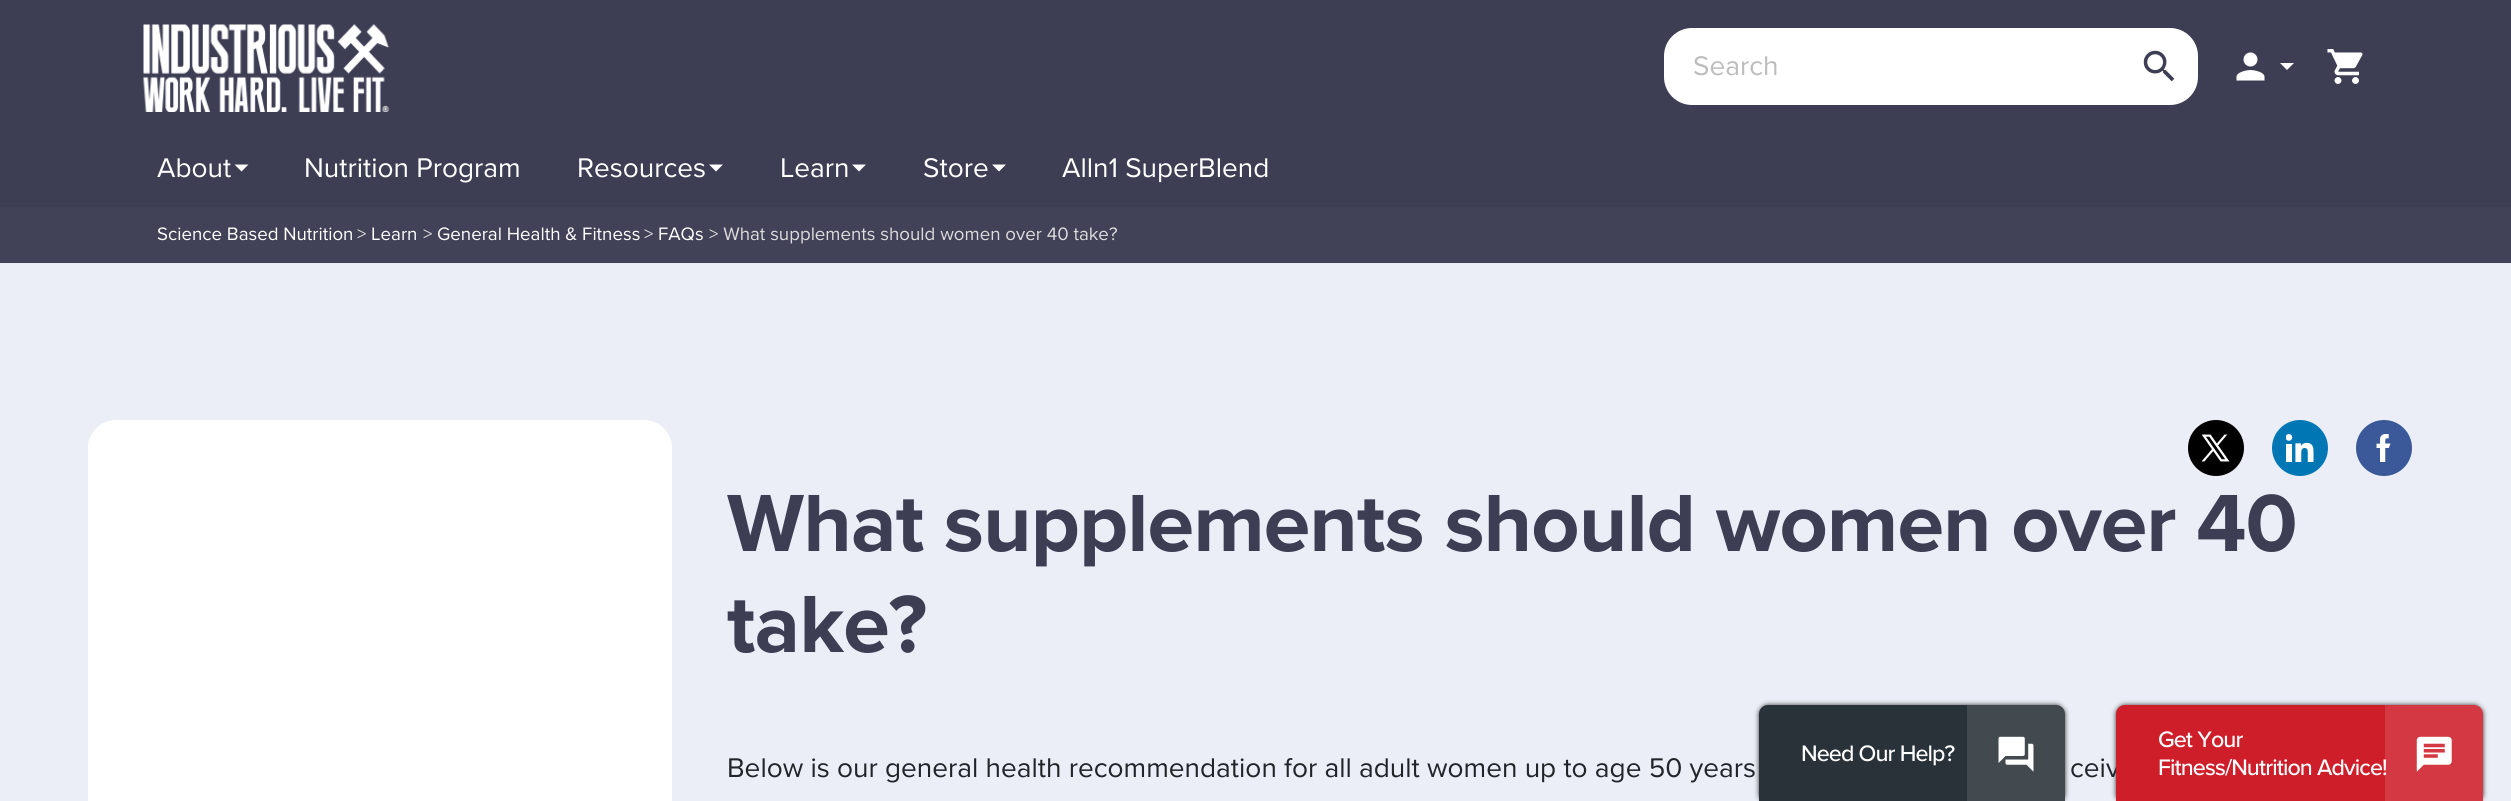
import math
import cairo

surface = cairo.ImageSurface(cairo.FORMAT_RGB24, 2511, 801)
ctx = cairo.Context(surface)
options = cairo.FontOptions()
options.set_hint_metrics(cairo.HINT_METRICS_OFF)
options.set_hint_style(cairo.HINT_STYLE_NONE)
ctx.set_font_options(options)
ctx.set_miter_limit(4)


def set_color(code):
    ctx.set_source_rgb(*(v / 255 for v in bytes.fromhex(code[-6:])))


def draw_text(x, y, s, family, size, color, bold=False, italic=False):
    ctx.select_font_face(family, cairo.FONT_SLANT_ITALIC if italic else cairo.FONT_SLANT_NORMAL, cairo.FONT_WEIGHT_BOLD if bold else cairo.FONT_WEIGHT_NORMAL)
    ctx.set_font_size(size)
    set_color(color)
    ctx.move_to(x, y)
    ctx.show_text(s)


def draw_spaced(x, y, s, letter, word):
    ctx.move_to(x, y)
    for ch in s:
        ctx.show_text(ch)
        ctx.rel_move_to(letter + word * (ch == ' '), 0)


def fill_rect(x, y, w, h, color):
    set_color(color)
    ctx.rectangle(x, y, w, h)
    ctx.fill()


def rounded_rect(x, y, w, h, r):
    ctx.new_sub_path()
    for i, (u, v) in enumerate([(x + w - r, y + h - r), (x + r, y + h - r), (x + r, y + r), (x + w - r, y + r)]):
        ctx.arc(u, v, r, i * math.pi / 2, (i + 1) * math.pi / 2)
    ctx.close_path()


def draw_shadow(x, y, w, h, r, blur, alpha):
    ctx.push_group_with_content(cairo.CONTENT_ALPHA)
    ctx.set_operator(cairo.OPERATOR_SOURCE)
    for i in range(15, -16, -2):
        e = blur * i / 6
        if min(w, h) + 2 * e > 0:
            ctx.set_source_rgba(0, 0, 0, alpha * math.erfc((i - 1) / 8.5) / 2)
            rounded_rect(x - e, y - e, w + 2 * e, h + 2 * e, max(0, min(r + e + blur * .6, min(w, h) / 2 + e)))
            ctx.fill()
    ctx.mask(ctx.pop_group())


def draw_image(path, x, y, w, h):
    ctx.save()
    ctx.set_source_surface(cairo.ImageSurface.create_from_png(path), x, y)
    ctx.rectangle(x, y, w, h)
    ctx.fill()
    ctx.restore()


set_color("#3d3d54")
ctx.paint()
draw_image("assets/img1.png", 143, 24, 246, 88)
set_color("#ffffff")
rounded_rect(1664, 28, 534, 77, 28)
ctx.fill()
draw_text(1693, 75, "Search", "Proxima Nova", 28, "#bdbdbd")
draw_image("assets/img2.png", 2143, 50, 32, 32)
draw_image("assets/img3.png", 2236, 52, 29, 29)
set_color("#ffffff")
ctx.new_path()
ctx.move_to(2280, 63)
ctx.line_to(2294, 63)
ctx.line_to(2287, 70)
ctx.close_path()
ctx.fill()
draw_image("assets/img4.png", 2327, 49, 36, 35)
draw_text(157, 177, "About", "Proxima Nova", 28, "#ffffff")
ctx.new_path()
ctx.move_to(234.5, 164.5)
ctx.line_to(248.5, 164.5)
ctx.line_to(241.5, 171.5)
ctx.close_path()
ctx.fill()
draw_text(304, 177, "Nutrition Program", "Proxima Nova", 28, "#ffffff")
draw_text(577, 177, "Resources", "Proxima Nova", 28, "#ffffff")
ctx.new_path()
ctx.move_to(709, 164.5)
ctx.line_to(723, 164.5)
ctx.line_to(716, 171.5)
ctx.close_path()
ctx.fill()
draw_text(780, 177, "Learn", "Proxima Nova", 28, "#ffffff")
ctx.new_path()
ctx.move_to(852, 164.5)
ctx.line_to(866, 164.5)
ctx.line_to(859, 171.5)
ctx.close_path()
ctx.fill()
draw_text(923, 177, "Store", "Proxima Nova", 28, "#ffffff")
ctx.new_path()
ctx.move_to(992, 164.5)
ctx.line_to(1006, 164.5)
ctx.line_to(999, 171.5)
ctx.close_path()
ctx.fill()
draw_text(1062, 177, "Alln1 SuperBlend", "Proxima Nova", 28, "#ffffff")
fill_rect(0, 207, 2511, 56, "#414157")
draw_text(157, 240, "Science Based Nutrition", "Proxima Nova", 18.7, "#ffffff")
draw_text(357, 240, ">", "Proxima Nova", 18.7, "#dcdcdc")
draw_text(371, 240, "Learn", "Proxima Nova", 18.7, "#ffffff")
draw_text(423, 240, ">", "Proxima Nova", 18.7, "#dcdcdc")
draw_text(437, 240, "General Health & Fitness", "Proxima Nova", 18.7, "#ffffff")
draw_text(644, 240, ">", "Proxima Nova", 18.7, "#dcdcdc")
draw_text(658, 240, "FAQs", "Proxima Nova", 18.7, "#ffffff")
draw_text(709, 240, "> What supplements should women over 40 take?", "Proxima Nova", 18.7, "#dcdcdc")
fill_rect(0, 263, 2511, 538, "#ebeef6")
set_color("#ffffff")
rounded_rect(88, 420, 584, 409, 28)
ctx.fill()
set_color("#000000")
ctx.arc(2216, 448, 28, 0, 2 * math.pi)
ctx.fill()
draw_image("assets/img5.png", 2202, 434, 28, 28)
set_color("#0077b5")
ctx.arc(2300, 448, 28, 0, 2 * math.pi)
ctx.fill()
draw_image("assets/img6.png", 2286, 434, 28, 28)
set_color("#3b5998")
ctx.arc(2384, 448, 28, 0, 2 * math.pi)
ctx.fill()
draw_image("assets/img7.png", 2376, 434, 15, 28)
ctx.select_font_face("Proxima Nova", cairo.FONT_SLANT_NORMAL, cairo.FONT_WEIGHT_BOLD)
ctx.set_font_size(84)
set_color("#3d3d54")
draw_spaced(727, 551, "What supplements should women over 40", -0.9, 0)
draw_spaced(727, 652, "take?", -0.9, 0)
draw_text(727, 777, "Below is our general health recommendation for all adult women up to age 50 years", "Proxima Nova", 28, "#212529")
draw_text(2070, 777, "ceiv", "Proxima Nova", 28, "#212529")
set_color("#333333")
draw_shadow(1759, 705, 306, 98, 9, 2.5, 1)
set_color("#293239")
ctx.new_path()
ctx.move_to(1768, 705)
ctx.line_to(2056, 705)
ctx.curve_to(2061, 705, 2065, 709, 2065, 714)
ctx.line_to(2065, 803)
ctx.line_to(1759, 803)
ctx.line_to(1759, 714)
ctx.curve_to(1759, 709, 1763, 705, 1768, 705)
ctx.close_path()
ctx.fill()
ctx.select_font_face("Proxima Nova Medium")
ctx.set_font_size(23.25)
set_color("#ffffff")
draw_spaced(1801, 761, "Need Our Help?", -0.9, 0)
ctx.set_source_rgba(1, 1, 1, 0.12)
ctx.rectangle(1967, 705, 98, 96)
ctx.fill()
draw_image("assets/img8.png", 1998, 736, 36, 36)
set_color("#333333")
draw_shadow(2116, 705, 367, 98, 9, 2.5, 1)
set_color("#ce1e29")
ctx.new_path()
ctx.move_to(2125, 705)
ctx.line_to(2474, 705)
ctx.curve_to(2479, 705, 2483, 709, 2483, 714)
ctx.line_to(2483, 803)
ctx.line_to(2116, 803)
ctx.line_to(2116, 714)
ctx.curve_to(2116, 709, 2120, 705, 2125, 705)
ctx.close_path()
ctx.fill()
set_color("#ffffff")
draw_spaced(2158, 747, "Get Your", -0.9, 0)
draw_spaced(2158, 775, "Fitness/Nutrition Advice!", -0.9, 0)
ctx.set_source_rgba(1, 1, 1, 0.12)
ctx.rectangle(2385, 705, 98, 96)
ctx.fill()
draw_image("assets/img9.png", 2416, 736, 36, 36)
surface.write_to_png("output.png")
